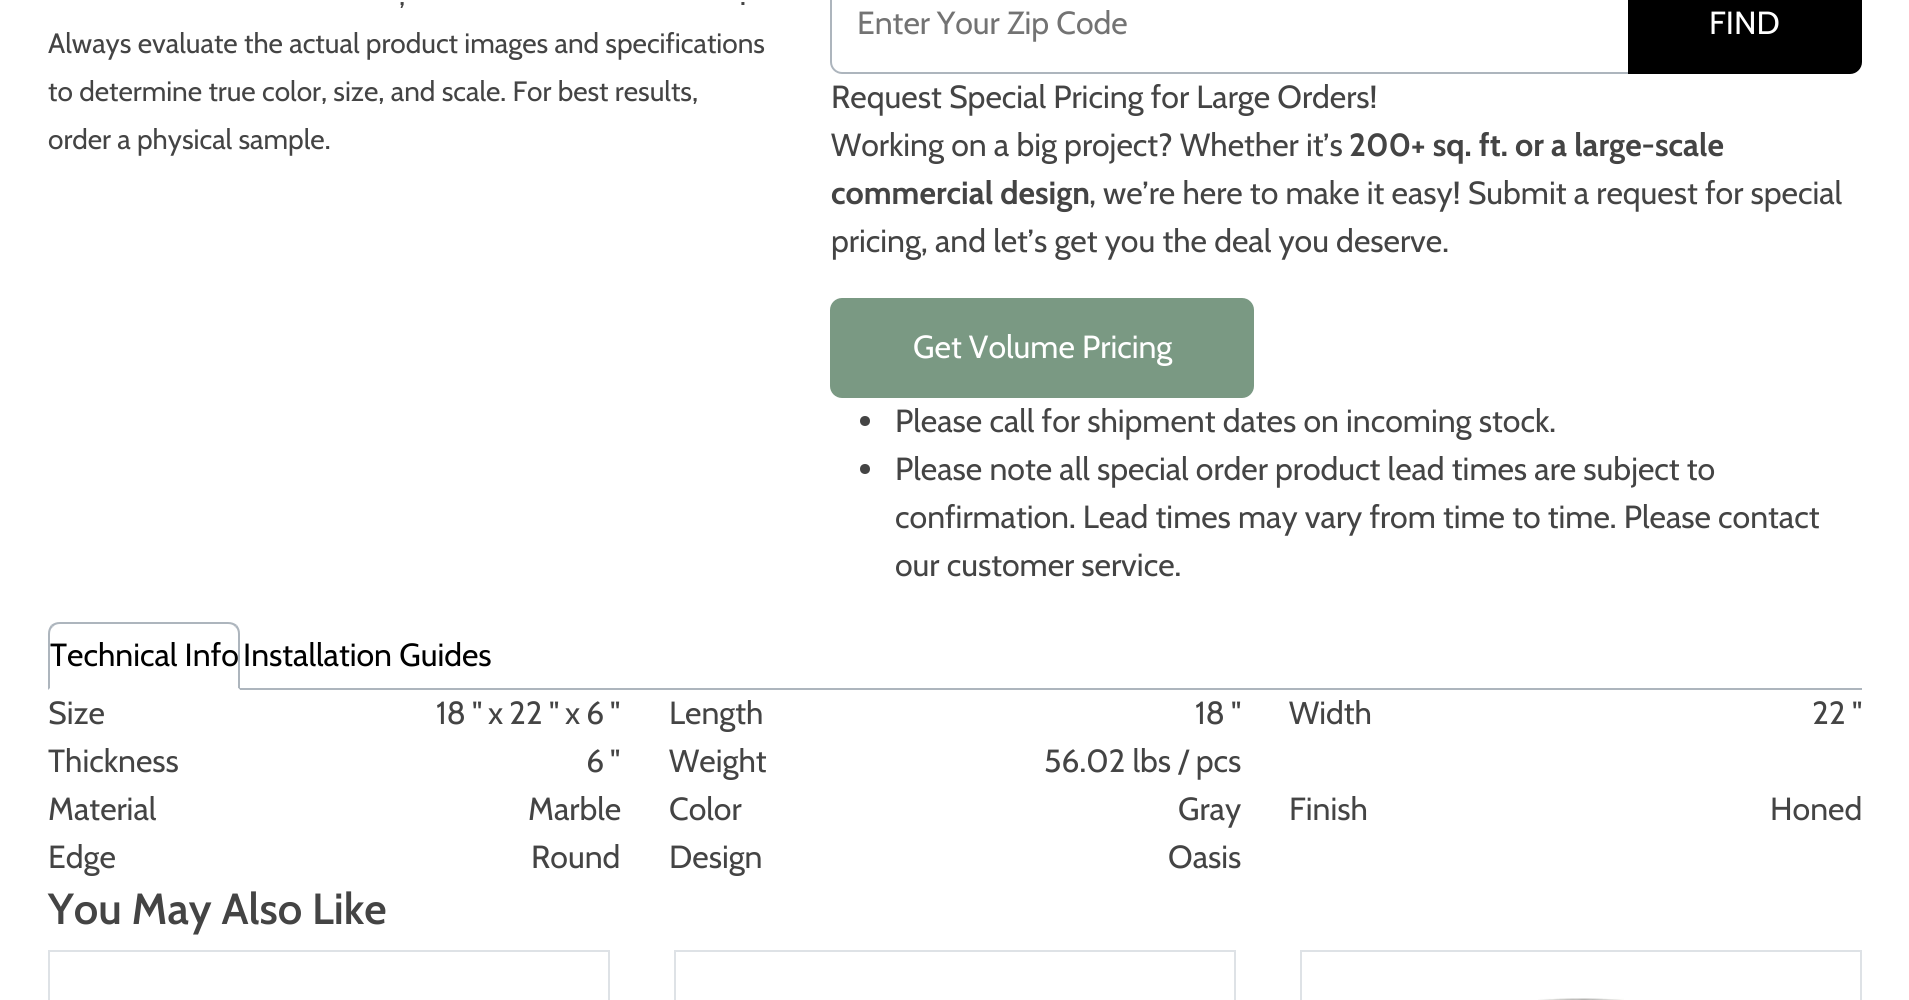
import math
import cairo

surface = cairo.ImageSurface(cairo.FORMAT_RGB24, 1909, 1000)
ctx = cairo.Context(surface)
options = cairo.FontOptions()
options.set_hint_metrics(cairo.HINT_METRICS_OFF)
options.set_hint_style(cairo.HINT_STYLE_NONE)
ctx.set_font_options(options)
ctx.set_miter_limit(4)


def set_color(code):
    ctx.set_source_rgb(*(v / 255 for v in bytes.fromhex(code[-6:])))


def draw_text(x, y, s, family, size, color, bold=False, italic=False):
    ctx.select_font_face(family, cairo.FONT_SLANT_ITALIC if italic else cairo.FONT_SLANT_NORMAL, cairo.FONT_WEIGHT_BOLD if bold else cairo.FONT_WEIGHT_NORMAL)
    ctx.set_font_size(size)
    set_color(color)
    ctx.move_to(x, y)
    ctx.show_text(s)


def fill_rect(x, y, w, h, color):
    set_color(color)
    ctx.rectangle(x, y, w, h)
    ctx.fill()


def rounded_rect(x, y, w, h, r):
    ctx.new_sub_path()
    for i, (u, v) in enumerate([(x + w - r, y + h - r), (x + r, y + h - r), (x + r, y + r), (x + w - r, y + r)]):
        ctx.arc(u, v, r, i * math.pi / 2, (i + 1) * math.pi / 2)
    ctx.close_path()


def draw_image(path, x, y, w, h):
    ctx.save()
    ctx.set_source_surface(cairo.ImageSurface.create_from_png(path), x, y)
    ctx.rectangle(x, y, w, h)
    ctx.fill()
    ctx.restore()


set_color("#ffffff")
ctx.paint()
draw_text(399, 5, ",", "Cabin", 28, "#444444")
draw_text(740, 5, ".", "Cabin", 28, "#444444")
draw_text(48, 53, "Always evaluate the actual product images and specifications", "Cabin", 28, "#444444")
draw_text(48, 101, "to determine true color, size, and scale. For best results,", "Cabin", 28, "#444444")
draw_text(48, 149, "order a physical sample.", "Cabin", 28, "#444444")
ctx.new_path()
ctx.move_to(842, -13)
ctx.line_to(1629, -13)
ctx.line_to(1629, 73)
ctx.line_to(842, 73)
ctx.curve_to(836, 73, 831, 68, 831, 62)
ctx.line_to(831, -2)
ctx.curve_to(831, -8, 836, -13, 842, -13)
ctx.close_path()
set_color("#adb5bd")
ctx.stroke()
draw_text(857, 34, "Enter Your Zip Code", "Cabin", 32, "#737373")
set_color("#000000")
ctx.new_path()
ctx.move_to(1629, -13)
ctx.line_to(1850, -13)
ctx.curve_to(1856, -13, 1861, -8, 1861, -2)
ctx.line_to(1861, 62)
ctx.curve_to(1861, 68, 1856, 73, 1850, 73)
ctx.line_to(1629, 73)
ctx.close_path()
ctx.fill_preserve()
ctx.stroke()
draw_text(1709, 34, "FIND", "Cabin", 32, "#ffffff")
draw_text(831, 108, "Request Special Pricing for Large Orders!", "Cabin", 32, "#444444")
draw_text(831, 156, "Working on a big project? Whether it’s", "Cabin", 32, "#444444")
draw_text(1349, 156, "200+ sq. ft. or a large-scale", "Cabin", 32, "#444444", bold=True)
draw_text(831, 204, "commercial design", "Cabin", 32, "#444444", bold=True)
draw_text(1089, 204, ", we’re here to make it easy! Submit a request for special", "Cabin", 32, "#444444")
draw_text(831, 252, "pricing, and let’s get you the deal you deserve.", "Cabin", 32, "#444444")
set_color("#7a9983")
rounded_rect(831, 299, 422, 98, 11)
ctx.fill_preserve()
ctx.stroke()
draw_text(913, 358, "Get Volume Pricing", "Cabin", 32, "#ffffff")
set_color("#444444")
ctx.new_path()
ctx.arc(865, 421, 5, 0, 2 * math.pi)
ctx.fill()
draw_text(895, 432, "Please call for shipment dates on incoming stock.", "Cabin", 32, "#444444")
ctx.new_path()
ctx.arc(865, 469, 5, 0, 2 * math.pi)
ctx.fill()
draw_text(895, 480, "Please note all special order product lead times are subject to", "Cabin", 32, "#444444")
draw_text(895, 528, "confirmation. Lead times may vary from time to time. Please contact", "Cabin", 32, "#444444")
draw_text(895, 576, "our customer service.", "Cabin", 32, "#444444")
fill_rect(240, 688, 1622, 2, "#adb5bd")
ctx.new_path()
ctx.move_to(60, 622)
ctx.curve_to(56, 622, 54, 623, 51, 625)
ctx.line_to(53, 627)
ctx.curve_to(54, 625, 57, 624, 60, 624)
ctx.line_to(228, 624)
ctx.curve_to(231, 624, 234, 625, 235, 627)
ctx.line_to(237, 625)
ctx.curve_to(234, 623, 232, 622, 228, 622)
ctx.close_path()
ctx.fill()
ctx.new_path()
ctx.move_to(240, 690)
ctx.line_to(240, 634)
ctx.curve_to(240, 630, 239, 628, 237, 625)
ctx.line_to(235, 627)
ctx.curve_to(237, 628, 238, 631, 238, 634)
ctx.line_to(238, 688)
ctx.close_path()
ctx.fill()
set_color("#ffffff")
ctx.new_path()
ctx.move_to(240, 690)
ctx.line_to(238, 688)
ctx.line_to(50, 688)
ctx.line_to(48, 690)
ctx.close_path()
ctx.fill()
set_color("#adb5bd")
ctx.new_path()
ctx.move_to(48, 690)
ctx.line_to(50, 688)
ctx.line_to(50, 634)
ctx.curve_to(50, 631, 51, 628, 53, 627)
ctx.line_to(51, 625)
ctx.curve_to(49, 628, 48, 630, 48, 634)
ctx.close_path()
ctx.fill()
draw_text(50, 666, "Technical Info", "Cabin", 32, "#000000")
draw_text(243, 666, "Installation Guides", "Cabin", 32, "#000000")
draw_text(48, 724, "Size", "Cabin", 32, "#444444")
draw_text(436, 724, "18", "Cabin", 32, "#444444")
draw_text(472, 724, "\"", "Cabin", 32, "#444444")
draw_text(509, 724, "22", "Cabin", 32, "#444444")
draw_text(549, 724, "\"", "Cabin", 32, "#444444")
draw_text(586, 724, "6", "Cabin", 32, "#444444")
draw_text(610, 724, "\"", "Cabin", 32, "#444444")
draw_text(488, 724, "x", "Cabin", 32, "#444444")
draw_text(565, 724, "x", "Cabin", 32, "#444444")
draw_text(669, 724, "Length", "Cabin", 32, "#444444")
draw_text(1195, 724, "18", "Cabin", 32, "#444444")
draw_text(1231, 724, "\"", "Cabin", 32, "#444444")
draw_text(1289, 724, "Width", "Cabin", 32, "#444444")
draw_text(1812, 724, "22", "Cabin", 32, "#444444")
draw_text(1852, 724, "\"", "Cabin", 32, "#444444")
draw_text(48, 772, "Thickness", "Cabin", 32, "#444444")
draw_text(586, 772, "6", "Cabin", 32, "#444444")
draw_text(610, 772, "\"", "Cabin", 32, "#444444")
draw_text(669, 772, "Weight", "Cabin", 32, "#444444")
draw_text(1044, 772, "56.02 lbs / pcs", "Cabin", 32, "#444444")
draw_text(48, 820, "Material", "Cabin", 32, "#444444")
draw_text(528, 820, "Marble", "Cabin", 32, "#444444")
draw_text(669, 820, "Color", "Cabin", 32, "#444444")
draw_text(1178, 820, "Gray", "Cabin", 32, "#444444")
draw_text(1289, 820, "Finish", "Cabin", 32, "#444444")
draw_text(1770, 820, "Honed", "Cabin", 32, "#444444")
draw_text(48, 868, "Edge", "Cabin", 32, "#444444")
draw_text(531, 868, "Round", "Cabin", 32, "#444444")
draw_text(669, 868, "Design", "Cabin", 32, "#444444")
draw_text(1168, 868, "Oasis", "Cabin", 32, "#444444")
draw_text(48, 924, "You May Also Like", "Cabin SemiBold", 43.5, "#444444")
ctx.rectangle(49, 951, 560, 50)
set_color("#dee2e6")
ctx.stroke()
ctx.rectangle(675, 951, 560, 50)
ctx.stroke()
ctx.rectangle(1301, 951, 560, 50)
ctx.stroke()
draw_image("assets/img1.png", 1538, 998, 86, 2)
surface.write_to_png("output.png")
